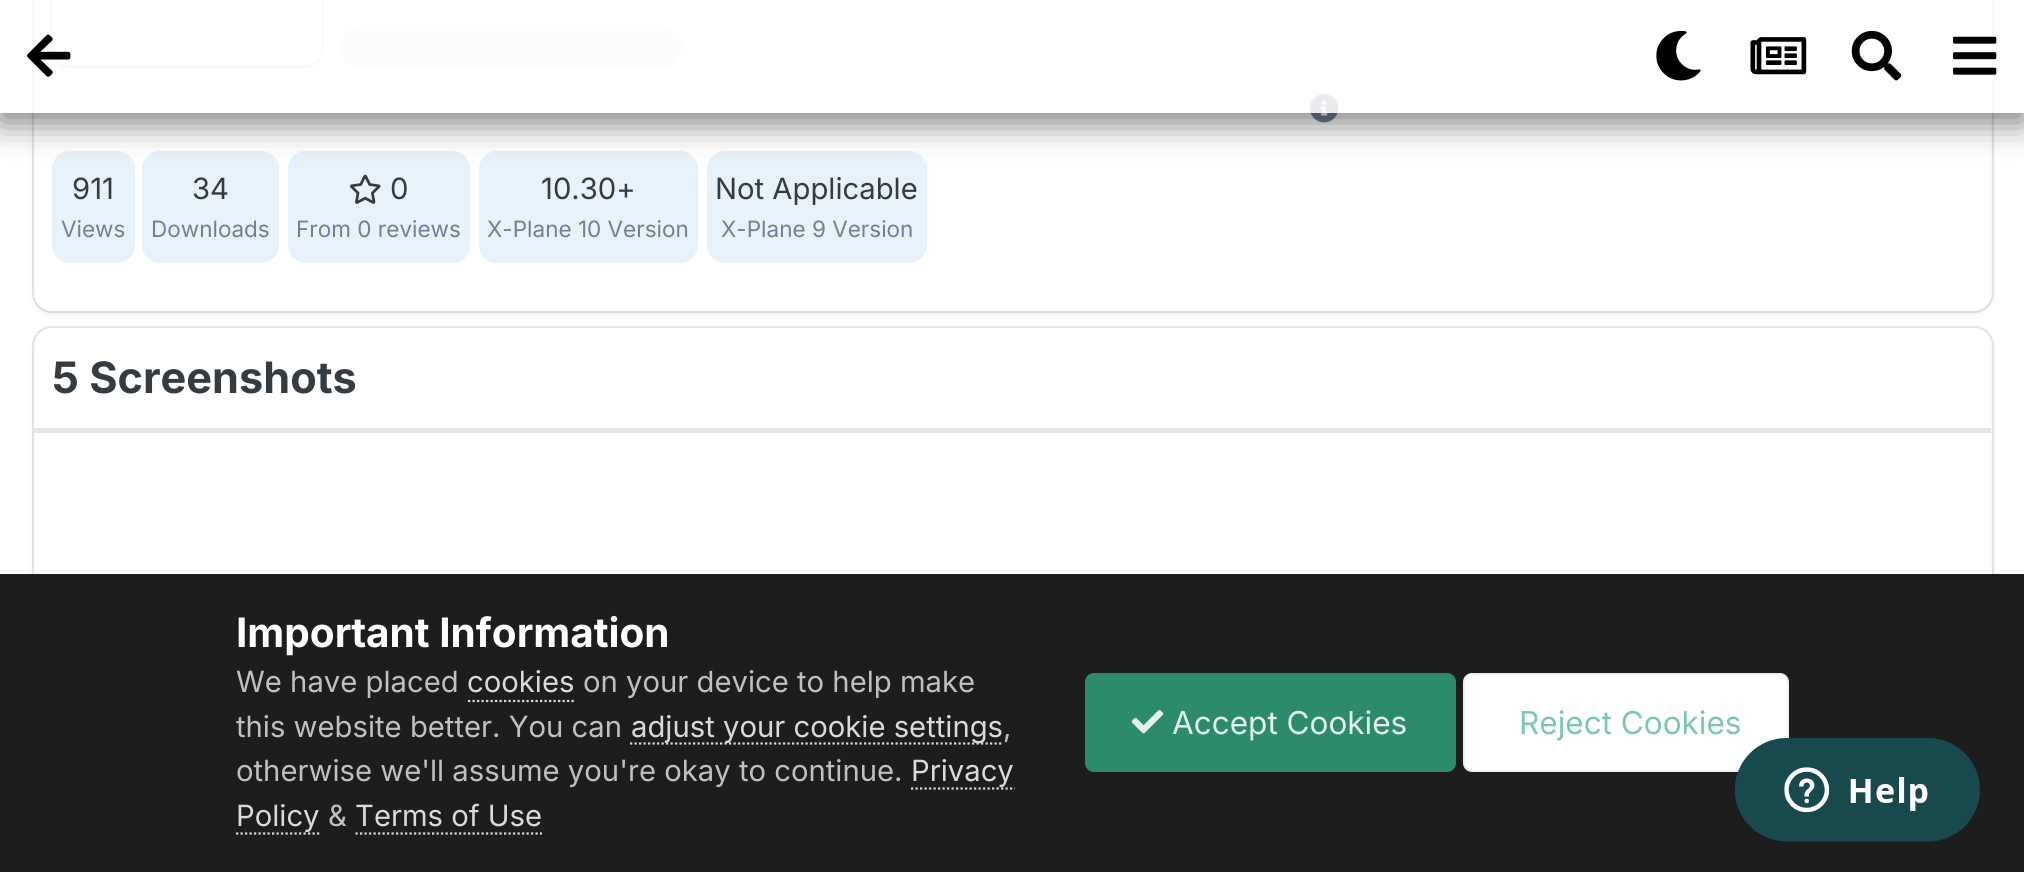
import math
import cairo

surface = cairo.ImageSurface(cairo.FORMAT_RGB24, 2024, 872)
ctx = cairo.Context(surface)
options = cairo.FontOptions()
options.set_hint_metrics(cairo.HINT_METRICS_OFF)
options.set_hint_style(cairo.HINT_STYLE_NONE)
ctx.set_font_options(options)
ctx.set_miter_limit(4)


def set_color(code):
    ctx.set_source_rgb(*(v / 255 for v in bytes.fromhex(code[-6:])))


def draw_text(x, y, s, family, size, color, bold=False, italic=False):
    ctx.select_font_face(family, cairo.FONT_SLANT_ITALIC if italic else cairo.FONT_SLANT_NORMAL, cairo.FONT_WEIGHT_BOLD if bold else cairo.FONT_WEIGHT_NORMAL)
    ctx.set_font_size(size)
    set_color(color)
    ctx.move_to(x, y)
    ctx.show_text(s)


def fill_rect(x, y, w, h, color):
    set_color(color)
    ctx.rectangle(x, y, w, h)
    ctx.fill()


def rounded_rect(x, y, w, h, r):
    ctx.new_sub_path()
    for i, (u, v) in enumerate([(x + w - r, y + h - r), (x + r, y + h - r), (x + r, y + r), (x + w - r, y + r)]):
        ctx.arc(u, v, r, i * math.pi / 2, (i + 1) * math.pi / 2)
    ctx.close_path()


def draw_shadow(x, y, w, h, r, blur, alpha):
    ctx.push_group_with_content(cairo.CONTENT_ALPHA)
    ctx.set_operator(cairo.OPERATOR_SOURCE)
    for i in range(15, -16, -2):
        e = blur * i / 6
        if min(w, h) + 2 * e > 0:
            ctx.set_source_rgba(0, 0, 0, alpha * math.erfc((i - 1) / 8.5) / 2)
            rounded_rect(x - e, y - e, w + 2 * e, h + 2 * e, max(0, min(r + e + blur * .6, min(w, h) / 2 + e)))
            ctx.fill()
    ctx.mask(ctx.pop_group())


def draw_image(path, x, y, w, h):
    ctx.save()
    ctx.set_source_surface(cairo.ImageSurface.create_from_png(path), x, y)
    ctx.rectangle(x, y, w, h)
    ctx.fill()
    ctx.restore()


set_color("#ffffff")
ctx.paint()
set_color("#1d1d1d")
draw_shadow(36, -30, 1953, 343, 16, 4.5, 0.1)
rounded_rect(33, -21, 1960, 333, 19)
ctx.set_source_rgba(0.443, 0.502, 0.588, 0.2)
ctx.stroke()
set_color("#ffffff")
rounded_rect(34, -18, 1957, 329, 18)
ctx.fill()
ctx.save()
ctx.set_fill_rule(cairo.FILL_RULE_EVEN_ODD)
ctx.new_path()
ctx.move_to(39, 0)
ctx.line_to(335, 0)
ctx.line_to(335, 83)
ctx.line_to(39, 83)
ctx.close_path()
ctx.move_to(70, -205)
ctx.line_to(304, -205)
ctx.curve_to(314, -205, 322, -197, 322, -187)
ctx.line_to(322, 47)
ctx.curve_to(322, 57, 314, 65, 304, 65)
ctx.line_to(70, 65)
ctx.curve_to(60, 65, 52, 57, 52, 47)
ctx.line_to(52, -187)
ctx.curve_to(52, -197, 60, -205, 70, -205)
ctx.close_path()
ctx.clip()
set_color("#1d1d1d")
draw_shadow(54, -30, 266, 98, 16, 4.5, 0.1)
ctx.restore()
rounded_rect(51, -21, 272, 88, 19)
ctx.set_source_rgba(0.443, 0.502, 0.588, 0.2)
ctx.stroke()
set_color("#e3f3ec")
rounded_rect(340, 25, 342, 45, 22.5)
ctx.fill()
draw_image("assets/img6.png", 1310, 94, 29, 29)
set_color("#e8f2fa")
rounded_rect(52, 151, 83, 112, 18)
ctx.fill()
rounded_rect(142, 151, 137, 112, 18)
ctx.fill()
rounded_rect(288, 151, 182, 112, 18)
ctx.fill()
rounded_rect(479, 151, 219, 112, 18)
ctx.fill()
rounded_rect(707, 151, 220, 112, 18)
ctx.fill()
ctx.save()
ctx.set_fill_rule(cairo.FILL_RULE_EVEN_ODD)
ctx.new_path()
ctx.move_to(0, 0)
ctx.line_to(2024, 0)
ctx.line_to(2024, 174)
ctx.line_to(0, 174)
ctx.close_path()
ctx.move_to(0, 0)
ctx.line_to(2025, 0)
ctx.line_to(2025, 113)
ctx.line_to(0, 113)
ctx.close_path()
ctx.clip()
set_color("#000000")
draw_shadow(0, 9, 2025, 113, 0, 17, 0.53)
ctx.restore()
ctx.set_source_rgba(1, 1, 1, 0.84)
ctx.rectangle(0, 0, 2024, 113)
ctx.fill()
draw_image("assets/img1.png", 27, 34, 44, 43)
draw_image("assets/img2.png", 1656, 30, 45, 51)
draw_image("assets/img3.png", 1750, 37, 57, 38)
draw_image("assets/img4.png", 1851, 30, 51, 51)
draw_image("assets/img5.png", 1953, 36, 44, 39)
draw_text(72, 199, "911", "Inter", 29.25, "#353c41")
draw_text(61, 237, "Views", "Inter", 22.5, "#718096")
draw_text(192, 199, "34", "Inter", 29.25, "#353c41")
draw_text(151, 237, "Downloads", "Inter", 22.5, "#718096")
draw_image("assets/img7.png", 349, 174, 32, 30)
draw_text(390, 199, "0", "Inter", 29.25, "#353c41")
draw_text(296, 237, "From 0 reviews", "Inter", 22.5, "#718096")
draw_text(541, 199, "10.30+", "Inter", 29.25, "#353c41")
draw_text(487, 237, "X-Plane 10 Version", "Inter", 22.5, "#718096")
draw_text(715, 199, "Not Applicable", "Inter", 29.25, "#353c41")
draw_text(721, 237, "X-Plane 9 Version", "Inter", 22.5, "#718096")
set_color("#1d1d1d")
draw_shadow(36, 335, 1953, 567, 16, 4.5, 0.1)
rounded_rect(33, 327, 1960, 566, 19)
ctx.set_source_rgba(0.443, 0.502, 0.588, 0.2)
ctx.stroke()
set_color("#ffffff")
rounded_rect(34, 329, 1957, 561, 18)
ctx.fill()
fill_rect(34, 428, 1957, 5, "#e3e6ea")
draw_text(52, 393, "5 Screenshots", "Inter", 43.25, "#353c41", bold=True)
fill_rect(0, 574, 2024, 298, "#1d1d1d")
draw_text(236, 647, "Important Information", "Inter", 40.5, "#ffffff", bold=True)
draw_text(236, 692, "We have placed", "Inter", 29.25, "#c0c0c0")
draw_text(467, 692, "cookies", "Inter", 29.25, "#dadada")
ctx.new_path()
ctx.move_to(468, 701)
ctx.line_to(574, 701)
ctx.set_line_width(2.2)
ctx.set_dash([2.25, 2.25])
ctx.stroke()
draw_text(583, 692, "on your device to help make", "Inter", 29.25, "#c0c0c0")
draw_text(236, 737, "this website better. You can", "Inter", 29.25, "#c0c0c0")
ctx.new_path()
ctx.move_to(630, 743.5)
ctx.line_to(1003.5, 743.5)
set_color("#dadada")
ctx.stroke()
draw_text(631, 737, "adjust your cookie settings", "Inter", 29.25, "#dadada")
draw_text(1003, 737, ",", "Inter", 29.25, "#c0c0c0")
draw_text(236, 781, "otherwise we'll assume you're okay to continue.", "Inter", 29.25, "#c0c0c0")
ctx.new_path()
ctx.move_to(911, 788.5)
ctx.line_to(1015, 788.5)
set_color("#dadada")
ctx.stroke()
draw_text(911, 781, "Privacy", "Inter", 29.25, "#dadada")
ctx.new_path()
ctx.move_to(236, 833.5)
ctx.line_to(319.5, 833.5)
ctx.stroke()
draw_text(236, 826, "Policy", "Inter", 29.25, "#dadada")
draw_text(328, 826, "&", "Inter", 29.25, "#c0c0c0")
draw_text(355, 826, "Terms of Use", "Inter", 29.25, "#dadada")
ctx.new_path()
ctx.move_to(355.5, 833.5)
ctx.line_to(542, 833.5)
ctx.stroke()
set_color("#2c8c69")
rounded_rect(1085, 673, 371, 99, 9)
ctx.fill()
draw_image("assets/img8.png", 1131, 710, 33, 24)
draw_text(1172, 734, "Accept Cookies", "Inter", 31.5, "#e3f3ec")
set_color("#ffffff")
rounded_rect(1463, 673, 326, 99, 9)
ctx.fill()
rounded_rect(1464, 674, 324, 97, 8)
ctx.set_source_rgba(0, 0, 0, 0.07)
ctx.set_line_width(2)
ctx.set_dash([])
ctx.stroke()
draw_text(1519, 734, "Reject Cookies", "Inter", 31.5, "#7bc9ac")
draw_image("assets/img9.png", 1735, 738, 245, 104)
surface.write_to_png("output.png")
